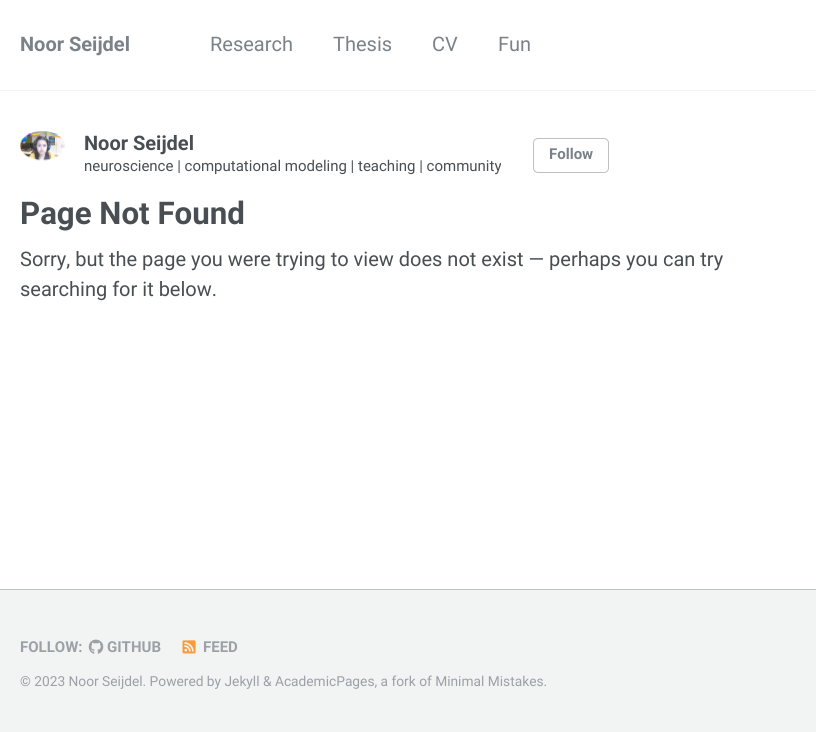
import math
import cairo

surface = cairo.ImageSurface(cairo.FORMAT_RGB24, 816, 732)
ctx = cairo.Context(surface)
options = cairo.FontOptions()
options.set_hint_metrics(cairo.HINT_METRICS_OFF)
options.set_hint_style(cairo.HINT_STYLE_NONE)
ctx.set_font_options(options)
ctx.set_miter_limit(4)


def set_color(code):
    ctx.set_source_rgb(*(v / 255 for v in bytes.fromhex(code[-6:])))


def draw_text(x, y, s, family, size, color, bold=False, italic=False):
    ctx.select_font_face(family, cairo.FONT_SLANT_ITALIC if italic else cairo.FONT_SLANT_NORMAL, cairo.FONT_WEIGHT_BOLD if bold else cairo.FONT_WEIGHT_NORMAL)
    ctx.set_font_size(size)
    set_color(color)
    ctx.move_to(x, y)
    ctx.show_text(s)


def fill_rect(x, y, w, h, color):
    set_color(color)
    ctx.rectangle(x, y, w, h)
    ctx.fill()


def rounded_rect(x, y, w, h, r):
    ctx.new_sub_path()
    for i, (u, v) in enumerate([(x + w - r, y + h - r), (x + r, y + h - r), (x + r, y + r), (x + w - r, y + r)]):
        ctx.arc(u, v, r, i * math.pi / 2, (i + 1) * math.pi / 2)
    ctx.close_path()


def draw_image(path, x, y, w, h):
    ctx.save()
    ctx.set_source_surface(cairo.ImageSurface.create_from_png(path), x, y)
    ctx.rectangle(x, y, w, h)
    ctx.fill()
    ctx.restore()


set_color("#ffffff")
ctx.paint()
fill_rect(0, 90, 816, 1, "#f2f3f3")
draw_text(20, 51, "Noor Seijdel", "Roboto", 20, "#7a8288", bold=True)
draw_text(210, 51, "Research", "Roboto", 20, "#7a8288")
draw_text(333, 51, "Thesis", "Roboto", 20, "#7a8288")
draw_text(432, 51, "CV", "Roboto", 20, "#7a8288")
draw_text(498, 51, "Fun", "Roboto", 20, "#7a8288")
draw_image("assets/img1.png", 20, 131, 45, 30)
draw_text(84, 150, "Noor Seijdel", "Roboto", 20, "#494e52", bold=True)
draw_text(84, 171, "neuroscience | computational modeling | teaching | community", "Roboto", 15, "#494e52")
rounded_rect(533.5, 138.5, 75, 34, 4.5)
set_color("#bdc1c4")
ctx.set_line_width(1)
ctx.stroke()
draw_text(549, 159, "Follow", "Roboto", 15, "#7a8288", bold=True)
draw_text(20, 224, "Page Not Found", "Roboto", 31.25, "#494e52", bold=True)
draw_text(20, 266, "Sorry, but the page you were trying to view does not exist — perhaps you can try", "Roboto", 20, "#494e52")
draw_text(20, 296, "searching for it below.", "Roboto", 20, "#494e52")
fill_rect(0, 590, 816, 142, "#f2f3f3")
fill_rect(0, 589, 816, 1, "#bdc1c4")
draw_text(20, 652, "FOLLOW:", "Roboto", 15, "#9ba1a6", bold=True)
draw_image("assets/img2.png", 88, 639, 16, 15)
draw_text(107, 652, "GITHUB", "Roboto", 15, "#9ba1a6", bold=True)
draw_image("assets/img3.png", 182, 640, 14, 14)
draw_text(203, 652, "FEED", "Roboto", 15, "#9ba1a6", bold=True)
draw_text(20, 686, "© 2023 Noor Seijdel. Powered by Jekyll & AcademicPages, a fork of Minimal Mistakes.", "Roboto", 13.75, "#9ba1a6")
surface.write_to_png("output.png")
